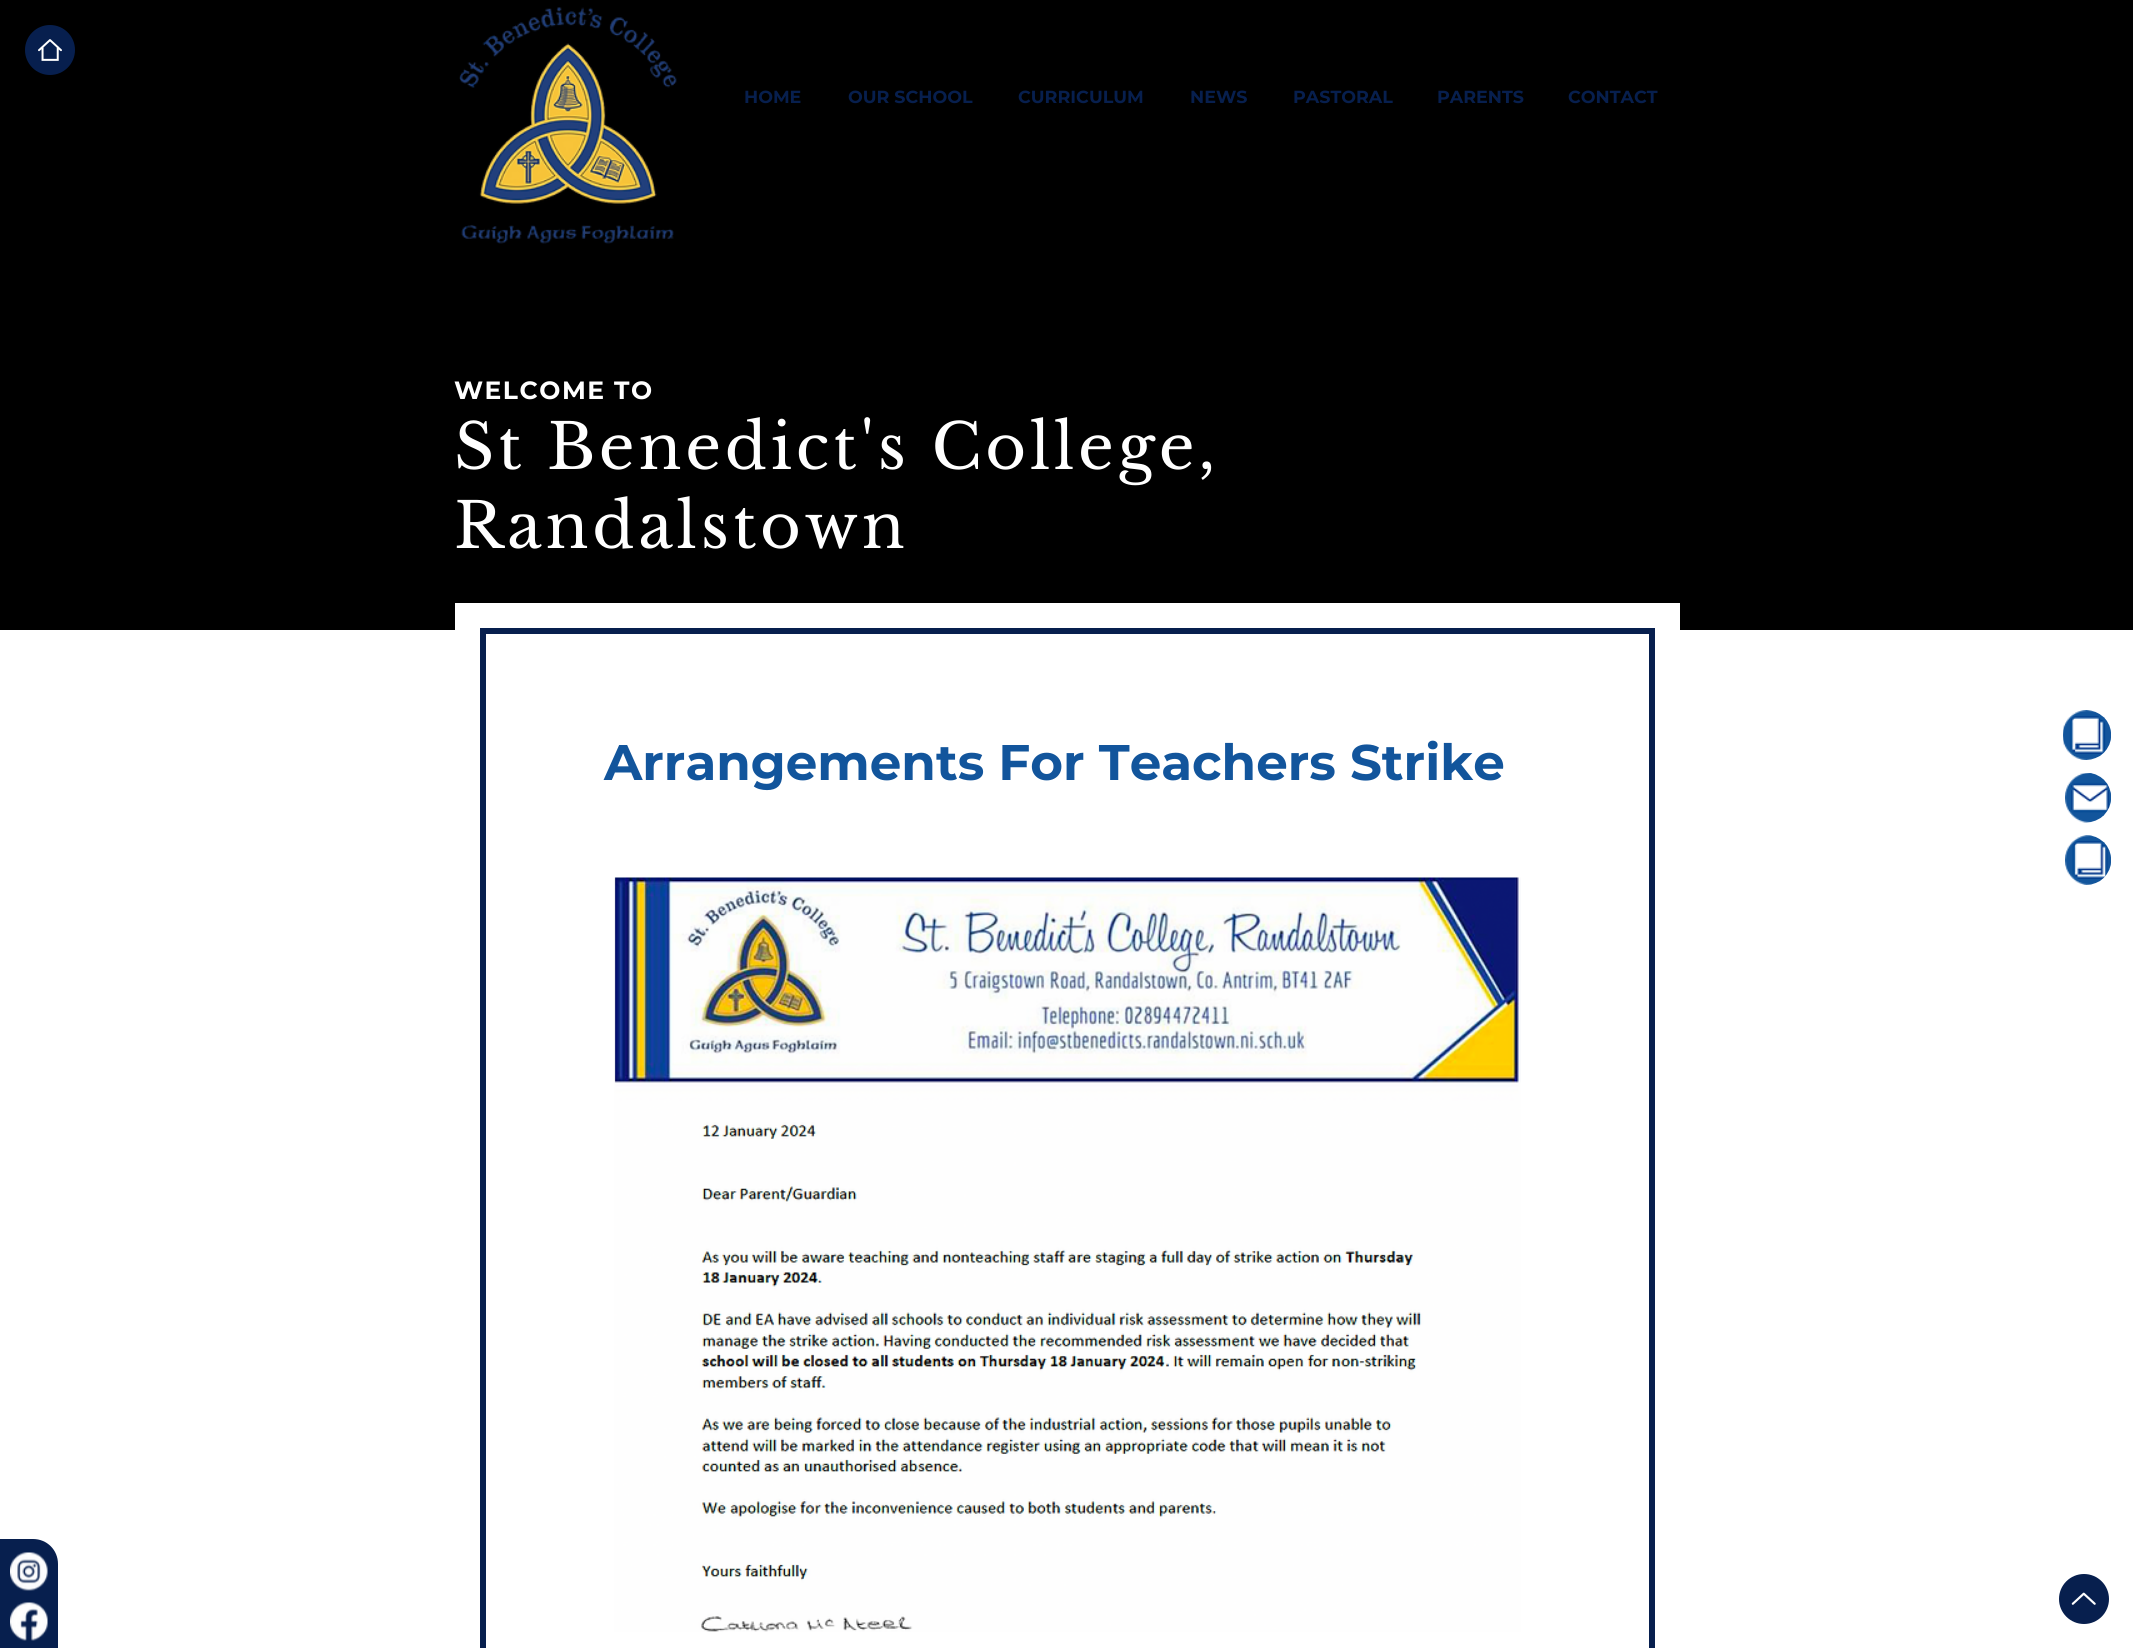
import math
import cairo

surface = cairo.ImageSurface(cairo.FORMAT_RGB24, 2133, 1648)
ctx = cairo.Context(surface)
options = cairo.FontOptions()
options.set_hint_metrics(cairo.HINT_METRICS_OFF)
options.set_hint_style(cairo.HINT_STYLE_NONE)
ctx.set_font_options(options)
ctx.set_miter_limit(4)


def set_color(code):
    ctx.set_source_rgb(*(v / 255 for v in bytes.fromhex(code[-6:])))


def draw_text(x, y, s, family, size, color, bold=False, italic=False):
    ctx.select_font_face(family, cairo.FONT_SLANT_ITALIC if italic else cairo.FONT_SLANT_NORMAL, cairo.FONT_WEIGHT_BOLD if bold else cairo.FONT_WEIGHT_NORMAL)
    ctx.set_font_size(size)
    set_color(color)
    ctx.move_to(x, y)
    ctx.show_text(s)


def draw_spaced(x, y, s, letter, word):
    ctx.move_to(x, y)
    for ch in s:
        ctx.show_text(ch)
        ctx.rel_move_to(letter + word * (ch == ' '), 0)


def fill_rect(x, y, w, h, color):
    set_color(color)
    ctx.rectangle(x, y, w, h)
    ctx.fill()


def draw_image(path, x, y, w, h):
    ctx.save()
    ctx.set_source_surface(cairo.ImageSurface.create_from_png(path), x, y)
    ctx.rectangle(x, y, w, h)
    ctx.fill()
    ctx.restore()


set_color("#ffffff")
ctx.paint()
fill_rect(0, 0, 2133, 630, "#000000")
set_color("#071f4e")
ctx.arc(50, 50, 25, 0, 2 * math.pi)
ctx.fill()
draw_image("assets/img1.png", 38, 39, 24, 22)
draw_image("assets/img2.png", 459, 7, 218, 237)
draw_text(744, 103, "HOME", "Montserrat", 17.5, "#071f4e", bold=True)
draw_text(848, 103, "OUR SCHOOL", "Montserrat", 17.5, "#071f4e", bold=True)
draw_text(1018, 103, "CURRICULUM", "Montserrat", 17.5, "#071f4e", bold=True)
draw_text(1190, 103, "NEWS", "Montserrat", 17.5, "#071f4e", bold=True)
draw_text(1293, 103, "PASTORAL", "Montserrat", 17.5, "#071f4e", bold=True)
draw_text(1437, 103, "PARENTS", "Montserrat", 17.5, "#071f4e", bold=True)
draw_text(1568, 103, "CONTACT", "Montserrat", 17.5, "#071f4e", bold=True)
ctx.set_font_size(25)
set_color("#ffffff")
draw_spaced(454, 399, "WELCOME TO", 1.5, 0)
ctx.select_font_face("Libre Baskerville")
ctx.set_font_size(62.5)
draw_spaced(454, 469, "St Benedict's College,", 3.75, 0)
draw_spaced(454, 548, "Randalstown", 3.75, 0)
fill_rect(455, 603, 1225, 27, "#ffffff")
ctx.rectangle(483, 631, 1169, 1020)
set_color("#071f4e")
ctx.set_line_width(6)
ctx.stroke()
draw_text(604, 780, "Arrangements For Teachers Strike", "Montserrat", 50, "#12559c", bold=True)
draw_image("assets/img3.png", 614, 877, 907, 755)
draw_image("assets/img4.png", 2063, 710, 48, 50)
draw_image("assets/img5.png", 2065, 773, 46, 50)
draw_image("assets/img6.png", 2065, 835, 46, 50)
set_color("#071f4e")
ctx.new_path()
ctx.move_to(0, 1539)
ctx.line_to(33, 1539)
ctx.curve_to(47, 1539, 58, 1550, 58, 1564)
ctx.line_to(58, 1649)
ctx.line_to(0, 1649)
ctx.close_path()
ctx.fill()
draw_image("assets/img7.png", 10, 1552, 38, 39)
draw_image("assets/img8.png", 10, 1602, 38, 39)
ctx.arc(2084, 1599, 25, 0, 2 * math.pi)
ctx.fill()
draw_image("assets/img9.png", 2071, 1592, 25, 13)
surface.write_to_png("output.png")
